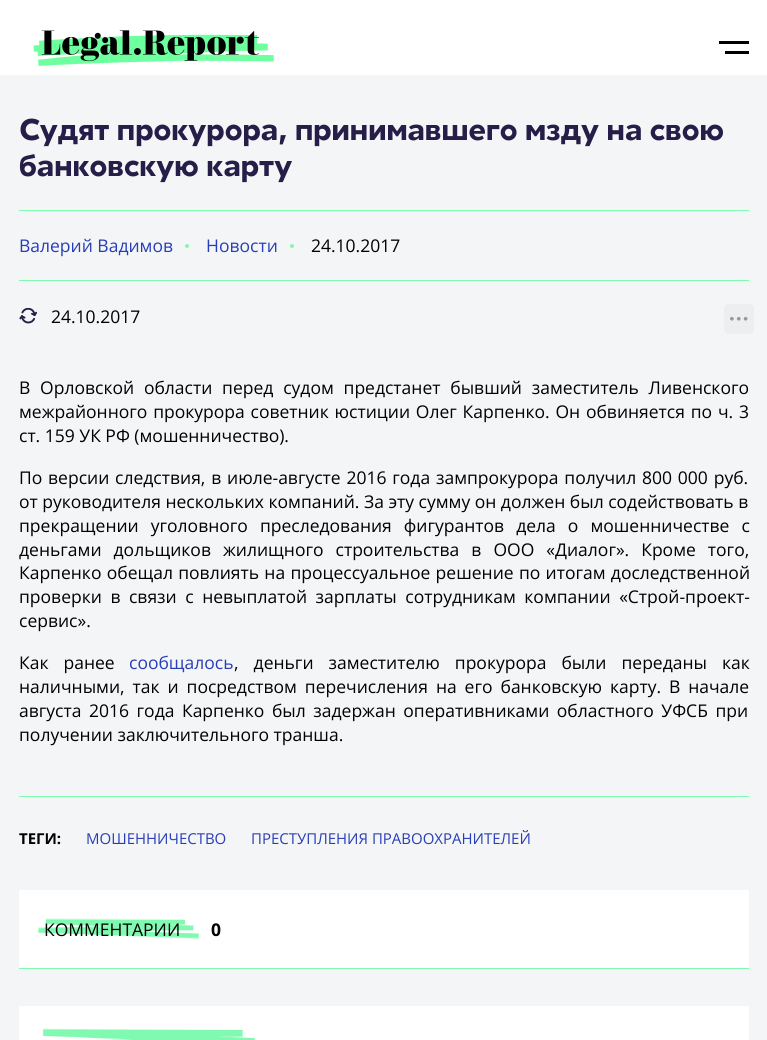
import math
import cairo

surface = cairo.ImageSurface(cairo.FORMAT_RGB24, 767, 1040)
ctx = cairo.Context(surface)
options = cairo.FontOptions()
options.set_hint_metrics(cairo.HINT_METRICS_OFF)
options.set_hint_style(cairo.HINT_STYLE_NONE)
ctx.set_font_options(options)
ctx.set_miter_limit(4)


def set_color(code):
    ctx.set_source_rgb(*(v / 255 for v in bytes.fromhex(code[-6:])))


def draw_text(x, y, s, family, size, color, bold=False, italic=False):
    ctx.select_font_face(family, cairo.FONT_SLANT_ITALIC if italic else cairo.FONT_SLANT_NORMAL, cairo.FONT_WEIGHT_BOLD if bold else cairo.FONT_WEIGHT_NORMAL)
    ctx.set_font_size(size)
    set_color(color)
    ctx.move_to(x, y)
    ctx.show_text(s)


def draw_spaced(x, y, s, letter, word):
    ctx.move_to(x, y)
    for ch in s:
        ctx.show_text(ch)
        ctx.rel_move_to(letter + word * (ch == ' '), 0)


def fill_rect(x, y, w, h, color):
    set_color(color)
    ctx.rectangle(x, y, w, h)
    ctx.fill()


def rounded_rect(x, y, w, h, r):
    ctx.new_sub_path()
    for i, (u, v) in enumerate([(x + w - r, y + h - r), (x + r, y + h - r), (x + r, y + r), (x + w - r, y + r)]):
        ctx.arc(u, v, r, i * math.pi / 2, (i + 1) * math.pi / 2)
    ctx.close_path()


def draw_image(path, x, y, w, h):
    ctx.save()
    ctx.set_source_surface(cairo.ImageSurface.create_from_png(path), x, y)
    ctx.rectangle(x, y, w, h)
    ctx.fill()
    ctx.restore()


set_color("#f4f5f6")
ctx.paint()
fill_rect(0, 0, 767, 75, "#ffffff")
draw_image("assets/img1.png", 33, 30, 241, 36)
fill_rect(719, 41, 30, 3, "#000000")
fill_rect(725, 51, 24, 3, "#000000")
draw_text(19, 140, "Судят прокурора, принимавшего мзду на свою", "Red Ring", 30, "#261d48", bold=True)
draw_text(19, 176, "банковскую карту", "Red Ring", 30, "#261d48", bold=True)
fill_rect(19, 210, 730, 1, "#80fab0")
fill_rect(19, 280, 730, 1, "#80fab0")
draw_text(19, 252, "Валерий Вадимов", "Open Sans", 17.5, "#283db8")
set_color("#80fab0")
ctx.new_path()
ctx.arc(187, 246, 2, 0, 2 * math.pi)
ctx.fill()
draw_text(206, 252, "Новости", "Open Sans", 17.5, "#283db8")
set_color("#80fab0")
ctx.new_path()
ctx.arc(292, 246, 2, 0, 2 * math.pi)
ctx.fill()
draw_text(311, 252, "24.10.2017", "Open Sans", 17.5, "#000000")
draw_image("assets/img2.png", 19, 308, 18, 16)
draw_text(51, 323, "24.10.2017", "Open Sans", 17.5, "#000000")
set_color("#edeeef")
rounded_rect(724, 304, 30, 30, 5)
ctx.fill()
draw_image("assets/img3.png", 730, 316, 18, 5)
set_color("#000000")
draw_spaced(19, 394, "В Орловской области перед судом предстанет бывший заместитель Ливенского", 0, 5.25)
draw_spaced(19, 418, "межрайонного прокурора советник юстиции Олег Карпенко. Он обвиняется по ч. 3", 0, 1.25)
draw_text(19, 442, "ст. 159 УК РФ (мошенничество).", "Open Sans", 17.5, "#000000")
draw_spaced(19, 484, "По версии следствия, в июле-августе 2016 года зампрокурора получил 800 000 руб.", 0, 1.25)
draw_text(19, 508, "от руководителя нескольких компаний. За эту сумму он должен был содействовать в", "Open Sans", 17.5, "#000000")
draw_spaced(19, 532, "прекращении уголовного преследования фигурантов дела о мошенничестве с", 0, 7.5)
draw_spaced(19, 556, "деньгами дольщиков жилищного строительства в ООО «Диалог». Кроме того,", 0, 7.5)
draw_spaced(19, 579, "Карпенко обещал повлиять на процессуальное решение по итогам доследственной", 0, 0.75)
draw_spaced(19, 603, "проверки в связи с невыплатой зарплаты сотрудникам компании «Строй-проект-", 0, 4)
draw_text(19, 627, "сервис».", "Open Sans", 17.5, "#000000")
draw_spaced(19, 669, "Как ранее", 0, 10.5)
draw_text(129, 669, "сообщалось", "Open Sans", 17.5, "#283db8")
set_color("#000000")
draw_spaced(234, 669, ", деньги заместителю прокурора были переданы как", 0, 10.5)
draw_spaced(19, 693, "наличными, так и посредством перечисления на его банковскую карту. В начале", 0, 3.4)
draw_spaced(19, 717, "августа 2016 года Карпенко был задержан оперативниками областного УФСБ при", 0, 3)
draw_text(19, 741, "получении заключительного транша.", "Open Sans", 17.5, "#000000")
fill_rect(19, 796, 730, 1, "#80fab0")
draw_text(19, 844, "ТЕГИ:", "Open Sans", 15, "#000000", bold=True)
draw_text(86, 844, "МОШЕННИЧЕСТВО", "Open Sans", 15, "#283db8")
draw_text(251, 844, "ПРЕСТУПЛЕНИЯ ПРАВООХРАНИТЕЛЕЙ", "Open Sans", 15, "#283db8")
fill_rect(19, 890, 730, 78, "#ffffff")
fill_rect(19, 968, 730, 1, "#80fab0")
draw_image("assets/img4.png", 38, 918, 161, 21)
draw_text(44, 936, "КОММЕНТАРИИ", "Open Sans", 17.5, "#000000")
draw_text(211, 936, "0", "Open Sans", 17.5, "#000000", bold=True)
fill_rect(19, 1006, 730, 34, "#ffffff")
draw_image("assets/img5.png", 42, 1028, 214, 12)
surface.write_to_png("output.png")
